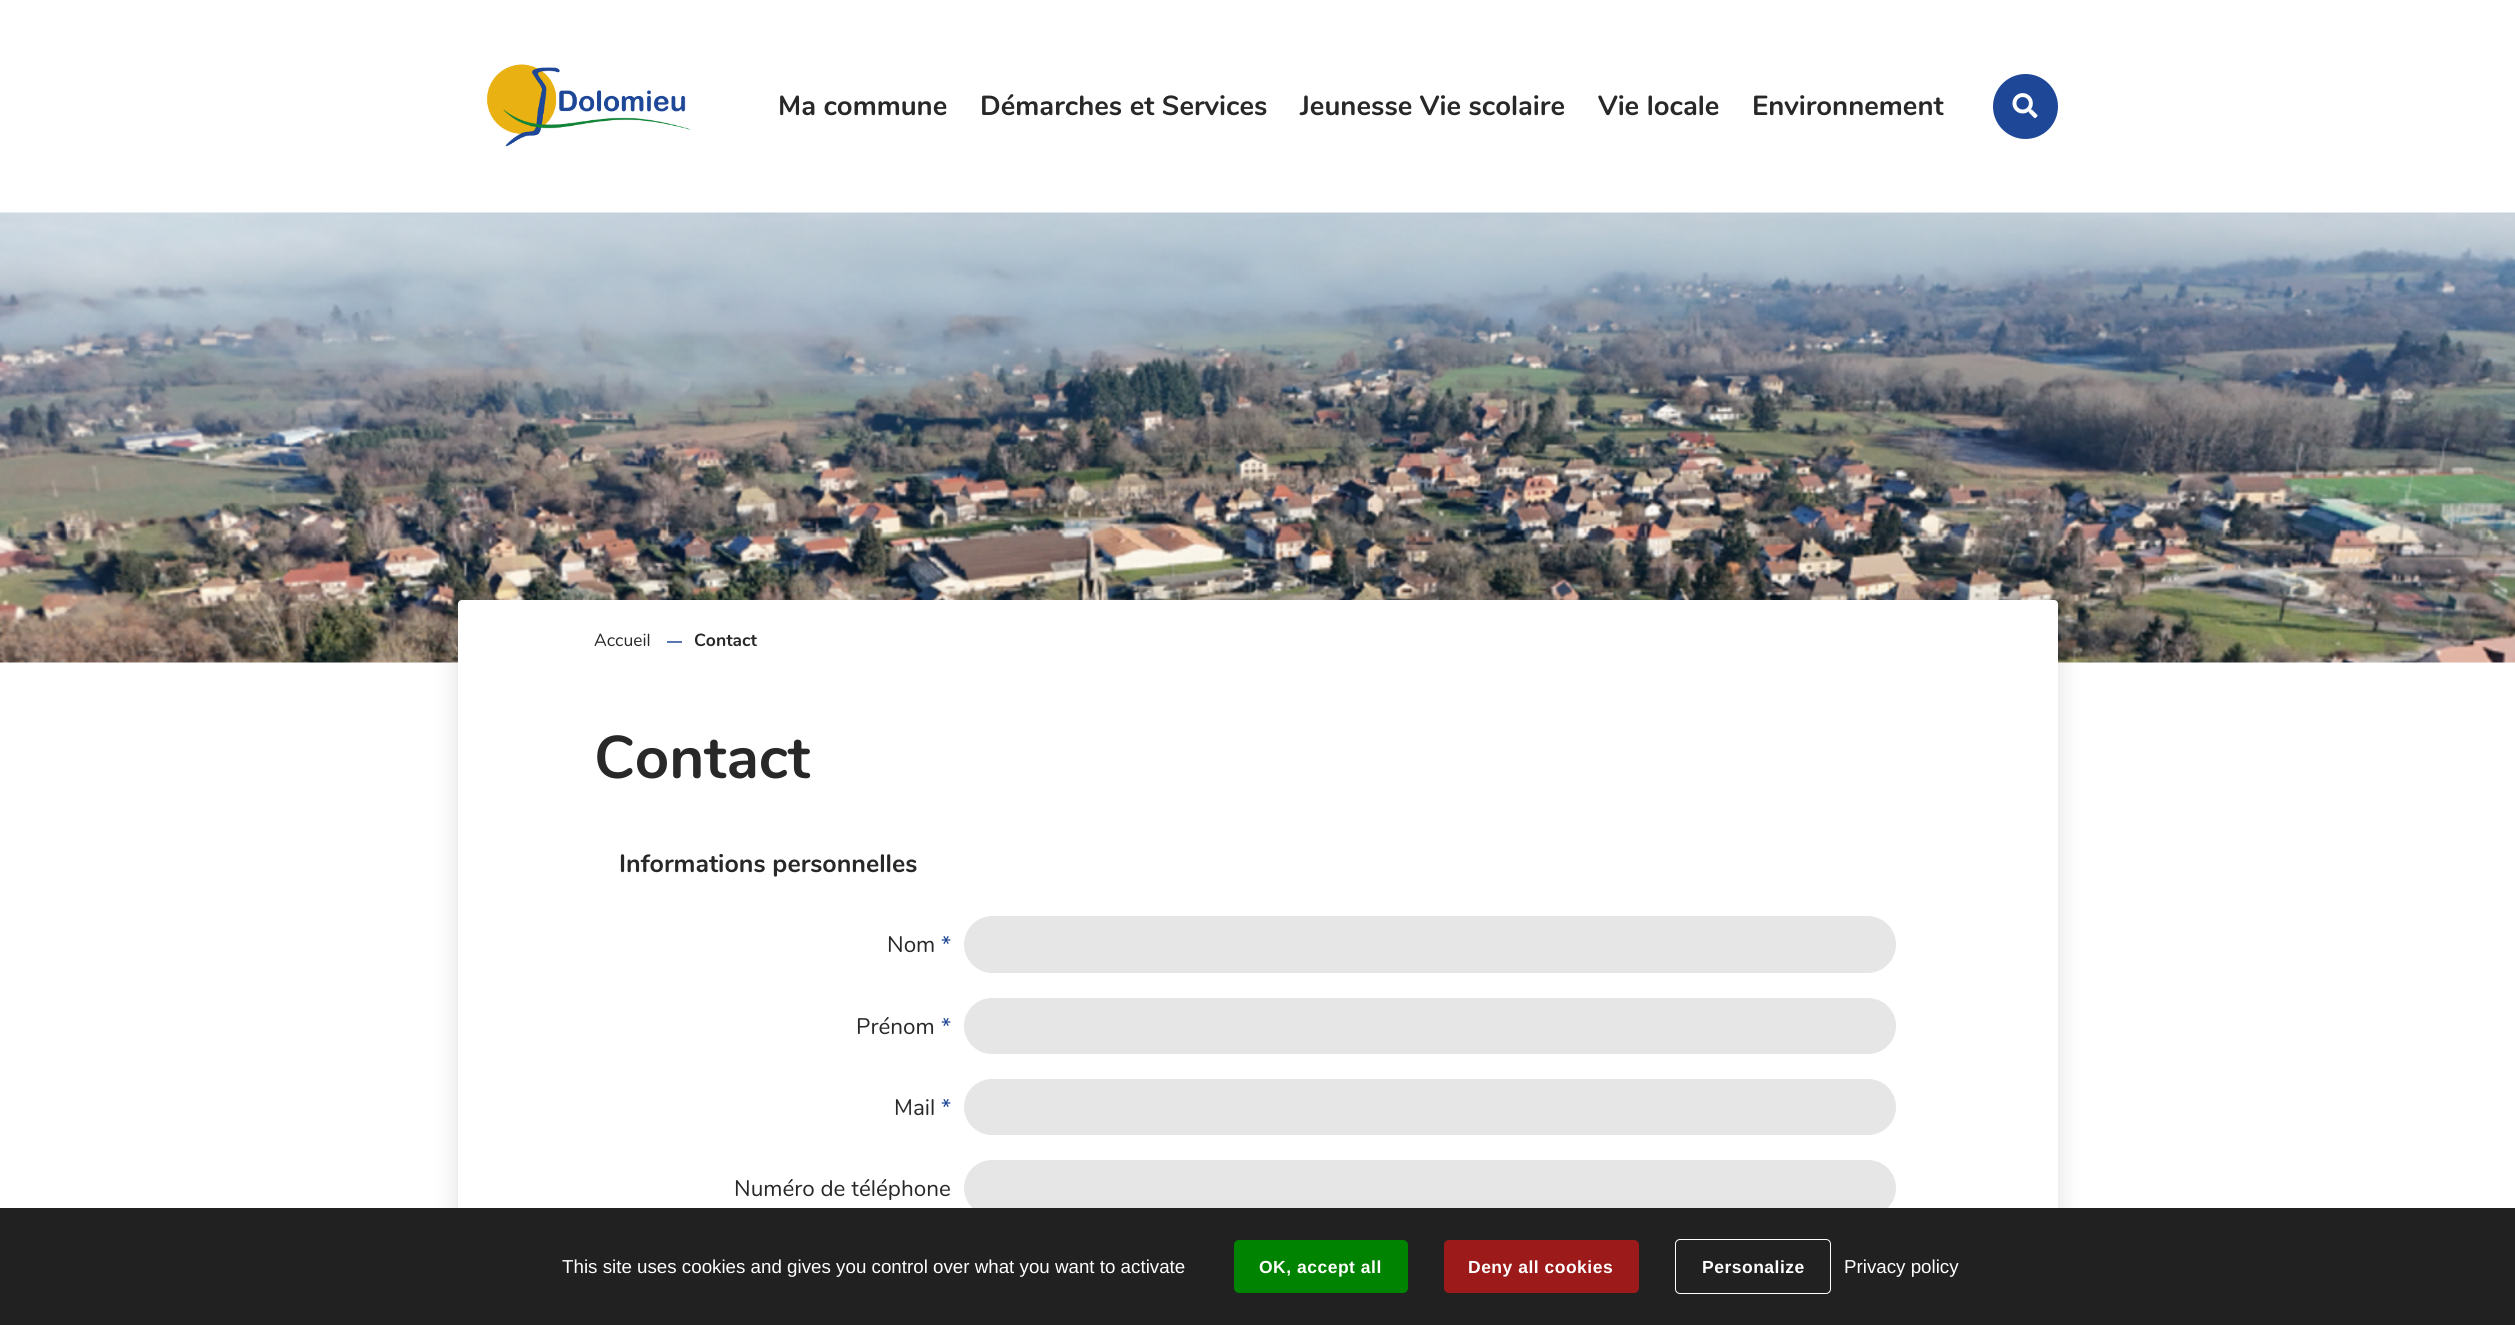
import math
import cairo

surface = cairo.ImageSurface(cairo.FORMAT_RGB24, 2515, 1325)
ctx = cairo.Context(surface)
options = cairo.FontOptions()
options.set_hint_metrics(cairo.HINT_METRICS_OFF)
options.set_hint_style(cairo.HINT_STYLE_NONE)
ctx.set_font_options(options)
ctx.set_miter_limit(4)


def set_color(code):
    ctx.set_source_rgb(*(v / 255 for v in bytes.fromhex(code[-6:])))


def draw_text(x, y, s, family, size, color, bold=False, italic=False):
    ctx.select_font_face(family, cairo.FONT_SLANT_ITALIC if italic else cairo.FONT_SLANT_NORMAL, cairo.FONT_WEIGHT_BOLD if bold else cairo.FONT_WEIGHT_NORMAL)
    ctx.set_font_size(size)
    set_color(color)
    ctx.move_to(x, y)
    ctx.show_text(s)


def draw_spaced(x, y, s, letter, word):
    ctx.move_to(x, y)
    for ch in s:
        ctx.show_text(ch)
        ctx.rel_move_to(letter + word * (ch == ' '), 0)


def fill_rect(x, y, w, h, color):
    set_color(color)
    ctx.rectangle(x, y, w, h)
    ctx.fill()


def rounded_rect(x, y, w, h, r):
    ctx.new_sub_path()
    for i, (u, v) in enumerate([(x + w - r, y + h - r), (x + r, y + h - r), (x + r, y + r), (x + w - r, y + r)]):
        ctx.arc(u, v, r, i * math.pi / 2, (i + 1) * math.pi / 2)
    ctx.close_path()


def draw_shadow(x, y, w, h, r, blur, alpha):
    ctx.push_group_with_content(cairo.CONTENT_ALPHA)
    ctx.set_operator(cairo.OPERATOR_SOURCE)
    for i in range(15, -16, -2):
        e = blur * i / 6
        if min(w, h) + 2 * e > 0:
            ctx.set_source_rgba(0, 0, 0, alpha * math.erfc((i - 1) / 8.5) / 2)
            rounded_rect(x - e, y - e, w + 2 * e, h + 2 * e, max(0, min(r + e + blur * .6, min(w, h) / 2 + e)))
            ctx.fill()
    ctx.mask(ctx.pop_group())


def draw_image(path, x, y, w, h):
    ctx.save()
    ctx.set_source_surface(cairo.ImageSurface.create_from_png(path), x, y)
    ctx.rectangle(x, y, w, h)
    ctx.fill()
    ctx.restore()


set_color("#ffffff")
ctx.paint()
draw_image("assets/img1.png", 486, 64, 205, 83)
draw_text(778, 115, "Ma commune", "Nunito", 27.5, "#282828", bold=True)
draw_text(980, 115, "Démarches et Services", "Nunito", 27.5, "#282828", bold=True)
draw_text(1300, 115, "Jeunesse Vie scolaire", "Nunito", 27.5, "#282828", bold=True)
draw_text(1598, 115, "Vie locale", "Nunito", 27.5, "#282828", bold=True)
draw_text(1752, 115, "Environnement", "Nunito", 27.5, "#282828", bold=True)
set_color("#1e4798")
ctx.new_path()
ctx.arc(2025.5, 106.5, 31, 0, 2 * math.pi)
ctx.fill_preserve()
ctx.set_line_width(3)
ctx.stroke()
draw_image("assets/img2.png", 2012, 93, 26, 26)
draw_image("assets/img3.png", 0, 212, 2515, 451)
set_color("#282828")
draw_shadow(458, 605, 1600, 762, 4, 12.5, 0.15)
set_color("#ffffff")
rounded_rect(458, 600, 1600, 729, 4)
ctx.fill()
draw_text(594, 646, "Accueil", "Nunito", 17.5, "#282828")
draw_text(667, 646, "―", "Liberation Sans", 15, "#1e4798", bold=True)
draw_text(694, 646, "Contact", "Nunito", 17.5, "#282828", bold=True)
draw_text(594, 778, "Contact", "Nunito", 60, "#282828", bold=True)
draw_text(619, 872, "Informations personnelles", "Nunito", 25, "#282828", bold=True)
draw_text(887, 952, "Nom", "Nunito", 22.5, "#282828")
draw_text(941, 952, "*", "Nunito", 22.5, "#1e4798")
set_color("#e6e6e6")
rounded_rect(964.5, 916.5, 931, 56, 28)
ctx.fill_preserve()
ctx.set_line_width(1)
ctx.stroke()
draw_text(856, 1034, "Prénom", "Nunito", 22.5, "#282828")
draw_text(941, 1034, "*", "Nunito", 22.5, "#1e4798")
set_color("#e6e6e6")
rounded_rect(964.5, 998.5, 931, 55, 27.5)
ctx.fill_preserve()
ctx.stroke()
draw_text(894, 1115, "Mail", "Nunito", 22.5, "#282828")
draw_text(941, 1115, "*", "Nunito", 22.5, "#1e4798")
set_color("#e6e6e6")
rounded_rect(964.5, 1079.5, 931, 55, 27.5)
ctx.fill_preserve()
ctx.stroke()
draw_text(734, 1196, "Numéro de téléphone", "Nunito", 22.5, "#282828")
set_color("#e6e6e6")
rounded_rect(964.5, 1160.5, 931, 55, 27.5)
ctx.fill_preserve()
ctx.stroke()
fill_rect(0, 1208, 2515, 117, "#212121")
draw_text(562, 1273, "This site uses cookies and gives you control over what you want to activate", "Liberation Sans", 18.75, "#ffffff")
set_color("#008300")
rounded_rect(1234, 1240, 174, 53, 5)
ctx.fill()
ctx.select_font_face("Liberation Sans", cairo.FONT_SLANT_NORMAL, cairo.FONT_WEIGHT_BOLD)
ctx.set_font_size(17.5)
set_color("#ffffff")
draw_spaced(1259, 1273, "OK, accept all", 0.5, 0)
set_color("#9c1a1a")
rounded_rect(1444, 1240, 195, 53, 5)
ctx.fill()
set_color("#ffffff")
draw_spaced(1468, 1273, "Deny all cookies", 0.5, 0)
rounded_rect(1675.5, 1239.5, 155, 54, 4.5)
ctx.stroke()
draw_spaced(1702, 1273, "Personalize", 0.5, 0)
draw_text(1844, 1273, "Privacy policy", "Liberation Sans", 18.75, "#ffffff")
surface.write_to_png("output.png")
